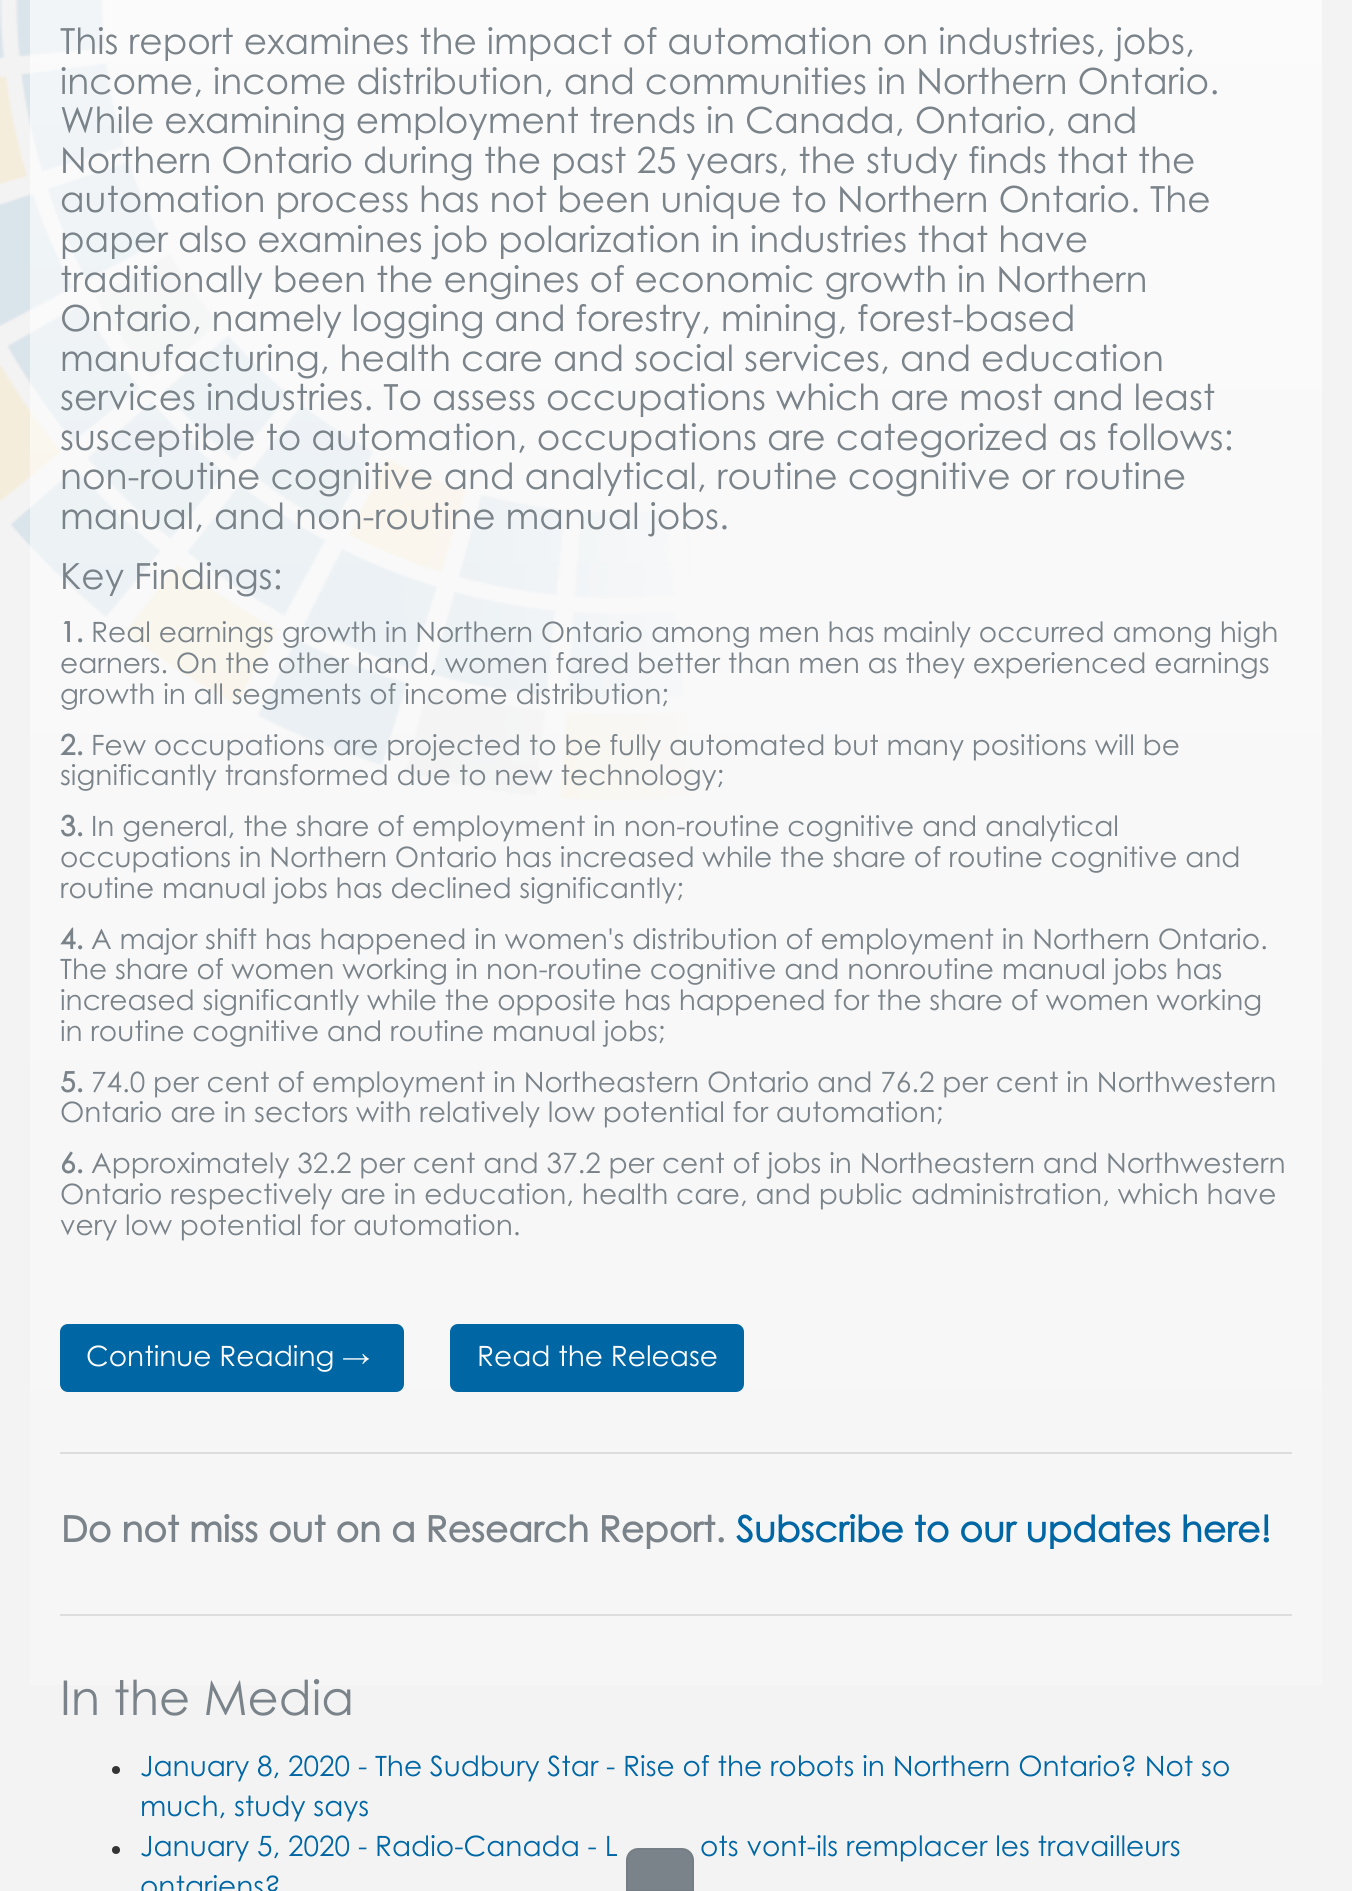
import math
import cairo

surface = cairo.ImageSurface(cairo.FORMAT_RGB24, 1352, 1891)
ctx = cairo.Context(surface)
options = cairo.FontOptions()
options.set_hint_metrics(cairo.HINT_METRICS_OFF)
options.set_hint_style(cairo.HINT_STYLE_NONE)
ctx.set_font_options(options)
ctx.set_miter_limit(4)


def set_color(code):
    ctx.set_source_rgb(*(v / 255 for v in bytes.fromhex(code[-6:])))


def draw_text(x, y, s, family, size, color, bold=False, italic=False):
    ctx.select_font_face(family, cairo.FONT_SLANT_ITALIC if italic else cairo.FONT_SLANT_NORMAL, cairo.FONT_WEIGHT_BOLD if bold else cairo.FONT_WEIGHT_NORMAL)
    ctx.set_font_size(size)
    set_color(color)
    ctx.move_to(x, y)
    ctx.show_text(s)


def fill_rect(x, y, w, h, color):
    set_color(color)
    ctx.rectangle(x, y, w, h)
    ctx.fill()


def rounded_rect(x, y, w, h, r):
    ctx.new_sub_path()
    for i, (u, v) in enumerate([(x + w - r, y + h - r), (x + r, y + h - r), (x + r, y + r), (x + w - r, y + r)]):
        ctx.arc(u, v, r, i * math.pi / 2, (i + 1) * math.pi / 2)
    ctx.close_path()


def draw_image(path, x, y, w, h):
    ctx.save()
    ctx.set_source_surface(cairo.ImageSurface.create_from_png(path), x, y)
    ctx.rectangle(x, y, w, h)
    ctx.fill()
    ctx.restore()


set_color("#f3f3f3")
ctx.paint()
draw_image("assets/img1.png", 0, 0, 691, 800)
gradient = cairo.LinearGradient(676, -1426, 676, 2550)
gradient.add_color_stop_rgba(0, 1, 1, 1, 1)
gradient.add_color_stop_rgba(1, 1, 1, 1, 0)
ctx.set_source(gradient)
ctx.rectangle(30, 0, 1292, 1685)
ctx.fill()
draw_text(60, 54, "This report examines the impact of automation on industries, jobs,", "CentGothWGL", 36, "#7a8389")
draw_text(60, 94, "income, income distribution, and communities in Northern Ontario.", "CentGothWGL", 36, "#7a8389")
draw_text(60, 133, "While examining employment trends in Canada, Ontario, and", "CentGothWGL", 36, "#7a8389")
draw_text(60, 173, "Northern Ontario during the past 25 years, the study finds that the", "CentGothWGL", 36, "#7a8389")
draw_text(60, 212, "automation process has not been unique to Northern Ontario. The", "CentGothWGL", 36, "#7a8389")
draw_text(60, 252, "paper also examines job polarization in industries that have", "CentGothWGL", 36, "#7a8389")
draw_text(60, 292, "traditionally been the engines of economic growth in Northern", "CentGothWGL", 36, "#7a8389")
draw_text(60, 331, "Ontario, namely logging and forestry, mining, forest-based", "CentGothWGL", 36, "#7a8389")
draw_text(60, 371, "manufacturing, health care and social services, and education", "CentGothWGL", 36, "#7a8389")
draw_text(60, 410, "services industries. To assess occupations which are most and least", "CentGothWGL", 36, "#7a8389")
draw_text(60, 450, "susceptible to automation, occupations are categorized as follows:", "CentGothWGL", 36, "#7a8389")
draw_text(60, 489, "non-routine cognitive and analytical, routine cognitive or routine", "CentGothWGL", 36, "#7a8389")
draw_text(60, 529, "manual, and non-routine manual jobs.", "CentGothWGL", 36, "#7a8389")
draw_text(60, 589, "Key Findings:", "CentGothWGL", 36, "#7a8389")
draw_text(60, 642, "1.", "CentGothWGL", 28, "#7a8389", bold=True)
draw_text(91, 642, "Real earnings growth in Northern Ontario among men has mainly occurred among high", "CentGothWGL", 28, "#7a8389")
draw_text(60, 673, "earners. On the other hand, women fared better than men as they experienced earnings", "CentGothWGL", 28, "#7a8389")
draw_text(60, 704, "growth in all segments of income distribution;", "CentGothWGL", 28, "#7a8389")
draw_text(60, 755, "2.", "CentGothWGL", 28, "#7a8389", bold=True)
draw_text(91, 755, "Few occupations are projected to be fully automated but many positions will be", "CentGothWGL", 28, "#7a8389")
draw_text(60, 785, "significantly transformed due to new technology;", "CentGothWGL", 28, "#7a8389")
draw_text(60, 836, "3.", "CentGothWGL", 28, "#7a8389", bold=True)
draw_text(91, 836, "In general, the share of employment in non-routine cognitive and analytical", "CentGothWGL", 28, "#7a8389")
draw_text(60, 867, "occupations in Northern Ontario has increased while the share of routine cognitive and", "CentGothWGL", 28, "#7a8389")
draw_text(60, 898, "routine manual jobs has declined significantly;", "CentGothWGL", 28, "#7a8389")
draw_text(60, 949, "4.", "CentGothWGL", 28, "#7a8389", bold=True)
draw_text(91, 949, "A major shift has happened in women's distribution of employment in Northern Ontario.", "CentGothWGL", 28, "#7a8389")
draw_text(60, 979, "The share of women working in non-routine cognitive and nonroutine manual jobs has", "CentGothWGL", 28, "#7a8389")
draw_text(60, 1010, "increased significantly while the opposite has happened for the share of women working", "CentGothWGL", 28, "#7a8389")
draw_text(60, 1041, "in routine cognitive and routine manual jobs;", "CentGothWGL", 28, "#7a8389")
draw_text(60, 1092, "5.", "CentGothWGL", 28, "#7a8389", bold=True)
draw_text(91, 1092, "74.0 per cent of employment in Northeastern Ontario and 76.2 per cent in Northwestern", "CentGothWGL", 28, "#7a8389")
draw_text(60, 1122, "Ontario are in sectors with relatively low potential for automation;", "CentGothWGL", 28, "#7a8389")
draw_text(60, 1173, "6.", "CentGothWGL", 28, "#7a8389", bold=True)
draw_text(91, 1173, "Approximately 32.2 per cent and 37.2 per cent of jobs in Northeastern and Northwestern", "CentGothWGL", 28, "#7a8389")
draw_text(60, 1204, "Ontario respectively are in education, health care, and public administration, which have", "CentGothWGL", 28, "#7a8389")
draw_text(60, 1235, "very low potential for automation.", "CentGothWGL", 28, "#7a8389")
set_color("#0066a4")
rounded_rect(61, 1325, 342, 66, 7)
ctx.fill_preserve()
ctx.stroke()
draw_text(86, 1366, "Continue Reading →", "CentGothWGL", 28, "#ffffff")
set_color("#0066a4")
rounded_rect(451, 1325, 292, 66, 7)
ctx.fill_preserve()
ctx.stroke()
draw_text(477, 1366, "Read the Release", "CentGothWGL", 28, "#ffffff")
fill_rect(60, 1452, 1232, 2, "#dddddd")
draw_text(61, 1542, "Do not miss out on a Research Report.", "CentGothWGL", 36, "#7a8389", bold=True)
draw_text(736, 1542, "Subscribe to our updates here!", "CentGothWGL", 36, "#0066a4", bold=True)
fill_rect(60, 1614, 1232, 2, "#dddddd")
draw_text(60, 1715, "In the Media", "CentGothWGL", 48, "#7a8389")
set_color("#333333")
ctx.new_path()
ctx.arc(116, 1770, 4, 0, 2 * math.pi)
ctx.fill()
draw_text(140, 1776, "January 8, 2020 - The Sudbury Star - Rise of the robots in Northern Ontario? Not so", "CentGothWGL", 28, "#0066a4")
draw_text(140, 1816, "much, study says", "CentGothWGL", 28, "#0066a4")
set_color("#333333")
ctx.new_path()
ctx.arc(116, 1850, 4, 0, 2 * math.pi)
ctx.fill()
draw_text(140, 1856, "January 5, 2020 - Radio-Canada - L", "CentGothWGL", 28, "#0066a4")
draw_text(700, 1856, "ots vont-ils remplacer les travailleurs", "CentGothWGL", 28, "#0066a4")
draw_text(140, 1896, "ontariens?", "CentGothWGL", 28, "#0066a4")
set_color("#7a8389")
ctx.new_path()
ctx.move_to(638, 1849)
ctx.line_to(682, 1849)
ctx.curve_to(688, 1849, 693, 1854, 693, 1860)
ctx.line_to(693, 1891)
ctx.line_to(627, 1891)
ctx.line_to(627, 1860)
ctx.curve_to(627, 1854, 632, 1849, 638, 1849)
ctx.close_path()
ctx.fill_preserve()
set_color("#757e84")
ctx.stroke()
surface.write_to_png("output.png")
